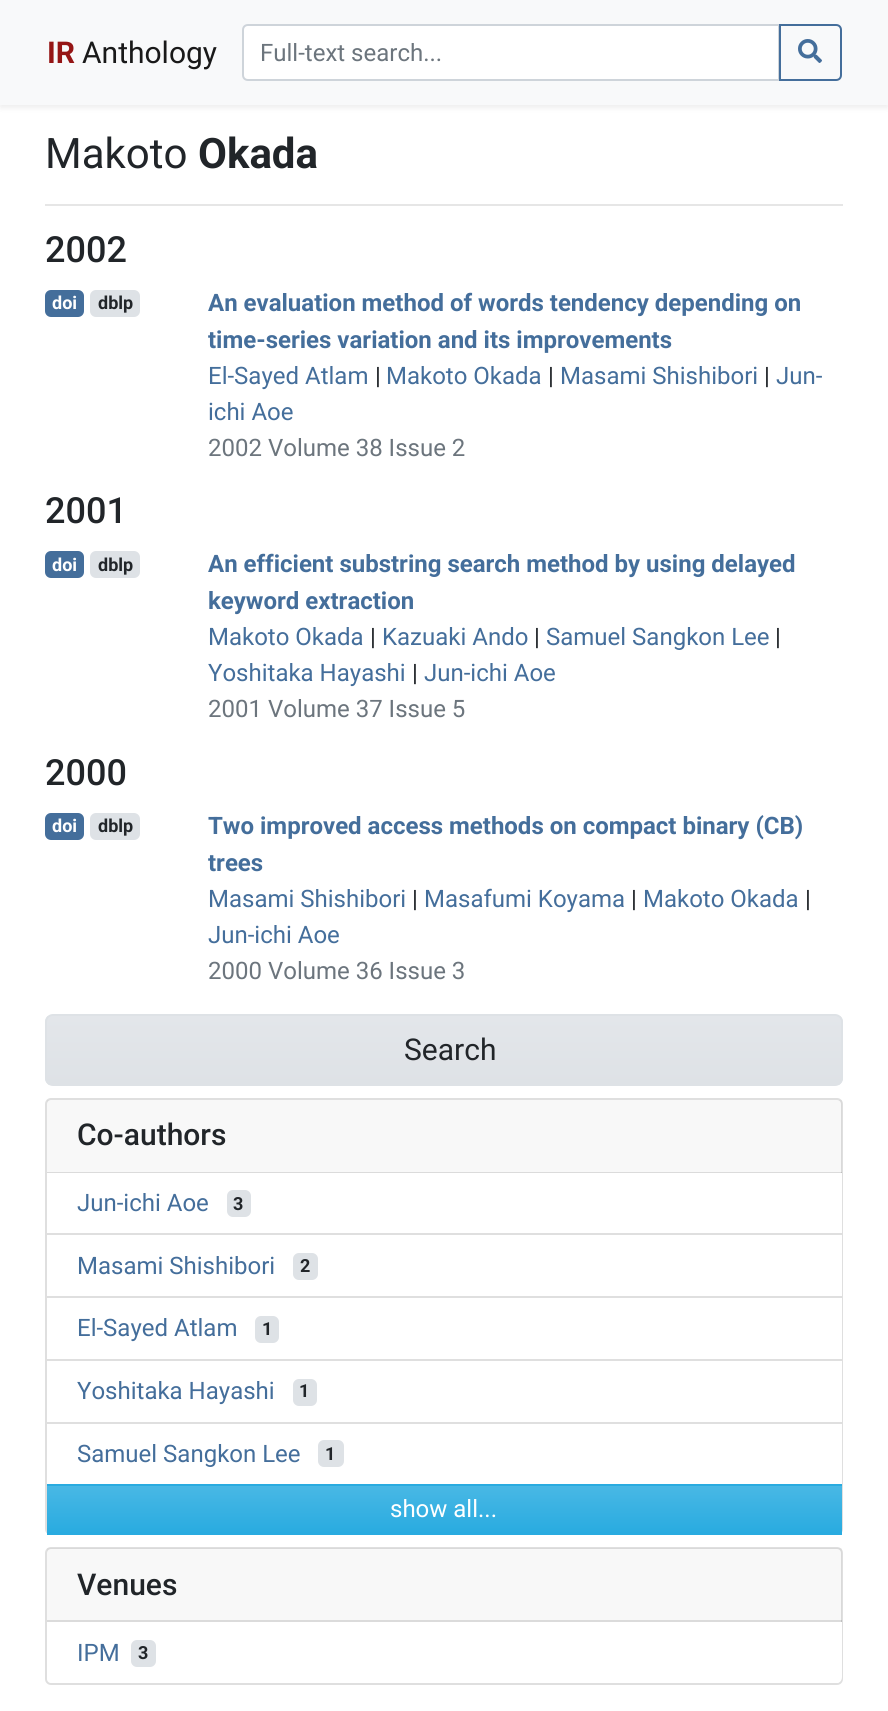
import math
import cairo

surface = cairo.ImageSurface(cairo.FORMAT_RGB24, 888, 1711)
ctx = cairo.Context(surface)
options = cairo.FontOptions()
options.set_hint_metrics(cairo.HINT_METRICS_OFF)
options.set_hint_style(cairo.HINT_STYLE_NONE)
ctx.set_font_options(options)
ctx.set_miter_limit(4)


def set_color(code):
    ctx.set_source_rgb(*(v / 255 for v in bytes.fromhex(code[-6:])))


def draw_text(x, y, s, family, size, color, bold=False, italic=False):
    ctx.select_font_face(family, cairo.FONT_SLANT_ITALIC if italic else cairo.FONT_SLANT_NORMAL, cairo.FONT_WEIGHT_BOLD if bold else cairo.FONT_WEIGHT_NORMAL)
    ctx.set_font_size(size)
    set_color(color)
    ctx.move_to(x, y)
    ctx.show_text(s)


def fill_rect(x, y, w, h, color):
    set_color(color)
    ctx.rectangle(x, y, w, h)
    ctx.fill()


def rounded_rect(x, y, w, h, r):
    ctx.new_sub_path()
    for i, (u, v) in enumerate([(x + w - r, y + h - r), (x + r, y + h - r), (x + r, y + r), (x + w - r, y + r)]):
        ctx.arc(u, v, r, i * math.pi / 2, (i + 1) * math.pi / 2)
    ctx.close_path()


def draw_shadow(x, y, w, h, r, blur, alpha):
    ctx.push_group_with_content(cairo.CONTENT_ALPHA)
    ctx.set_operator(cairo.OPERATOR_SOURCE)
    for i in range(15, -16, -2):
        e = blur * i / 6
        if min(w, h) + 2 * e > 0:
            ctx.set_source_rgba(0, 0, 0, alpha * math.erfc((i - 1) / 8.5) / 2)
            rounded_rect(x - e, y - e, w + 2 * e, h + 2 * e, max(0, min(r + e + blur * .6, min(w, h) / 2 + e)))
            ctx.fill()
    ctx.mask(ctx.pop_group())


def draw_image(path, x, y, w, h):
    ctx.save()
    ctx.set_source_surface(cairo.ImageSurface.create_from_png(path), x, y)
    ctx.rectangle(x, y, w, h)
    ctx.fill()
    ctx.restore()


set_color("#ffffff")
ctx.paint()
set_color("#000000")
draw_shadow(0, 3, 888, 105, 0, 3, 0.07)
fill_rect(0, 0, 888, 105, "#f8f9fa")
draw_text(47, 63, "IR", "Roboto", 30, "#951515", bold=True)
draw_text(82, 63, "Anthology", "Roboto", 30, "#191919")
set_color("#ffffff")
ctx.new_path()
ctx.move_to(248, 25)
ctx.line_to(779, 25)
ctx.line_to(779, 80)
ctx.line_to(248, 80)
ctx.curve_to(245, 80, 243, 78, 243, 75)
ctx.line_to(243, 30)
ctx.curve_to(243, 27, 245, 25, 248, 25)
ctx.close_path()
ctx.fill_preserve()
set_color("#ced4da")
ctx.stroke()
draw_text(260, 61, "Full-text search...", "Roboto", 24, "#6c757d")
ctx.new_path()
ctx.move_to(780, 25)
ctx.line_to(836, 25)
ctx.curve_to(839, 25, 841, 27, 841, 30)
ctx.line_to(841, 75)
ctx.curve_to(841, 78, 839, 80, 836, 80)
ctx.line_to(780, 80)
ctx.close_path()
set_color("#446e9b")
ctx.stroke()
draw_image("assets/img1.png", 798, 39, 24, 24)
draw_text(45, 168, "Makoto", "Roboto", 42, "#212529")
draw_text(198, 168, "Okada", "Roboto", 42, "#212529", bold=True)
fill_rect(45, 204, 798, 2, "#e6e6e6")
draw_text(45, 262, "2002", "Roboto Medium", 36, "#212529")
set_color("#446e9b")
rounded_rect(45, 290, 39, 27, 6)
ctx.fill()
draw_text(52, 309, "doi", "Roboto", 18, "#ffffff", bold=True)
set_color("#dee2e6")
rounded_rect(90, 290, 50, 27, 6)
ctx.fill()
draw_text(98, 309, "dblp", "Roboto", 18, "#212529", bold=True)
draw_text(208, 311, "An evaluation method of words tendency depending on", "Roboto", 24, "#446e9b", bold=True)
draw_text(208, 348, "time-series variation and its improvements", "Roboto", 24, "#446e9b", bold=True)
draw_text(208, 384, "El-Sayed Atlam", "Roboto", 24, "#446e9b")
draw_text(375, 384, "|", "Roboto", 24, "#212529")
draw_text(386, 384, "Makoto Okada", "Roboto", 24, "#446e9b")
draw_text(548, 384, "|", "Roboto", 24, "#212529")
draw_text(560, 384, "Masami Shishibori", "Roboto", 24, "#446e9b")
draw_text(764, 384, "|", "Roboto", 24, "#212529")
draw_text(776, 384, "Jun-", "Roboto", 24, "#446e9b")
draw_text(208, 420, "ichi Aoe", "Roboto", 24, "#446e9b")
draw_text(208, 456, "2002 Volume 38 Issue 2", "Roboto", 24, "#6c757d")
draw_text(45, 523, "2001", "Roboto Medium", 36, "#212529")
set_color("#446e9b")
rounded_rect(45, 551, 39, 27, 6)
ctx.fill()
draw_text(52, 571, "doi", "Roboto", 18, "#ffffff", bold=True)
set_color("#dee2e6")
rounded_rect(90, 551, 50, 27, 6)
ctx.fill()
draw_text(98, 571, "dblp", "Roboto", 18, "#212529", bold=True)
draw_text(208, 572, "An efficient substring search method by using delayed", "Roboto", 24, "#446e9b", bold=True)
draw_text(208, 609, "keyword extraction", "Roboto", 24, "#446e9b", bold=True)
draw_text(208, 645, "Makoto Okada", "Roboto", 24, "#446e9b")
draw_text(370, 645, "|", "Roboto", 24, "#212529")
draw_text(382, 645, "Kazuaki Ando", "Roboto", 24, "#446e9b")
draw_text(534, 645, "|", "Roboto", 24, "#212529")
draw_text(546, 645, "Samuel Sangkon Lee", "Roboto", 24, "#446e9b")
draw_text(775, 645, "|", "Roboto", 24, "#212529")
draw_text(208, 681, "Yoshitaka Hayashi", "Roboto", 24, "#446e9b")
draw_text(412, 681, "|", "Roboto", 24, "#212529")
draw_text(424, 681, "Jun-ichi Aoe", "Roboto", 24, "#446e9b")
draw_text(208, 717, "2001 Volume 37 Issue 5", "Roboto", 24, "#6c757d")
draw_text(45, 785, "2000", "Roboto Medium", 36, "#212529")
set_color("#446e9b")
rounded_rect(45, 813, 39, 27, 6)
ctx.fill()
draw_text(52, 832, "doi", "Roboto", 18, "#ffffff", bold=True)
set_color("#dee2e6")
rounded_rect(90, 813, 50, 27, 6)
ctx.fill()
draw_text(98, 832, "dblp", "Roboto", 18, "#212529", bold=True)
draw_text(208, 834, "Two improved access methods on compact binary (CB)", "Roboto", 24, "#446e9b", bold=True)
draw_text(208, 871, "trees", "Roboto", 24, "#446e9b", bold=True)
draw_text(208, 907, "Masami Shishibori", "Roboto", 24, "#446e9b")
draw_text(412, 907, "|", "Roboto", 24, "#212529")
draw_text(424, 907, "Masafumi Koyama", "Roboto", 24, "#446e9b")
draw_text(631, 907, "|", "Roboto", 24, "#212529")
draw_text(643, 907, "Makoto Okada", "Roboto", 24, "#446e9b")
draw_text(805, 907, "|", "Roboto", 24, "#212529")
draw_text(208, 943, "Jun-ichi Aoe", "Roboto", 24, "#446e9b")
draw_text(208, 979, "2000 Volume 36 Issue 3", "Roboto", 24, "#6c757d")
ctx.save()
rounded_rect(45, 1014, 798, 72, 8)
ctx.clip()
gradient = cairo.LinearGradient(444, 1016, 444, 1085)
gradient.add_color_stop_rgba(0, 0.89, 0.902, 0.918, 1)
gradient.add_color_stop_rgba(1, 0.871, 0.886, 0.902, 1)
ctx.set_source(gradient)
ctx.rectangle(45, 1016, 798, 69)
ctx.fill()
ctx.restore()
rounded_rect(46, 1015, 796, 70, 7)
set_color("#dee2e6")
ctx.stroke()
draw_text(404, 1060, "Search", "Roboto", 30, "#212529")
rounded_rect(46, 1099, 796, 435, 5)
set_color("#dfdfdf")
ctx.stroke()
ctx.set_source_rgba(0, 0, 0, 0.03)
ctx.rectangle(47, 1100, 795, 73)
ctx.fill()
ctx.set_source_rgba(0, 0, 0, 0.12)
ctx.rectangle(47, 1172, 795, 1)
ctx.fill()
draw_text(77, 1145, "Co-authors", "Roboto Medium", 30, "#212529")
fill_rect(841, 1173, 1, 60, "#ffffff")
draw_text(77, 1211, "Jun-ichi Aoe", "Roboto", 24, "#446e9b")
set_color("#dee2e6")
rounded_rect(227, 1190, 24, 27, 6)
ctx.fill()
draw_text(233, 1210, "3", "Roboto", 18, "#212529", bold=True)
fill_rect(841, 1235, 1, 61, "#ffffff")
fill_rect(47, 1233, 795, 2, "#dfdfdf")
draw_text(77, 1274, "Masami Shishibori", "Roboto", 24, "#446e9b")
set_color("#dee2e6")
rounded_rect(293, 1253, 25, 27, 6)
ctx.fill()
draw_text(300, 1272, "2", "Roboto", 18, "#212529", bold=True)
fill_rect(841, 1298, 1, 61, "#ffffff")
fill_rect(47, 1296, 795, 2, "#dfdfdf")
draw_text(77, 1336, "El-Sayed Atlam", "Roboto", 24, "#446e9b")
set_color("#dee2e6")
rounded_rect(255, 1316, 24, 27, 6)
ctx.fill()
draw_text(262, 1335, "1", "Roboto", 18, "#212529", bold=True)
fill_rect(841, 1361, 1, 61, "#ffffff")
fill_rect(47, 1359, 795, 2, "#dfdfdf")
draw_text(77, 1399, "Yoshitaka Hayashi", "Roboto", 24, "#446e9b")
set_color("#dee2e6")
rounded_rect(293, 1379, 24, 27, 6)
ctx.fill()
draw_text(299, 1397, "1", "Roboto", 18, "#212529", bold=True)
fill_rect(841, 1424, 1, 60, "#ffffff")
fill_rect(47, 1422, 795, 2, "#dfdfdf")
draw_text(77, 1462, "Samuel Sangkon Lee", "Roboto", 24, "#446e9b")
set_color("#dee2e6")
rounded_rect(318, 1440, 26, 27, 6)
ctx.fill()
draw_text(325, 1460, "1", "Roboto", 18, "#212529", bold=True)
fill_rect(47, 1533, 795, 2, "#29abe0")
gradient = cairo.LinearGradient(444, 1485, 444, 1533)
gradient.add_color_stop_rgba(0, 0.286, 0.722, 0.898, 1)
gradient.add_color_stop_rgba(1, 0.161, 0.671, 0.878, 1)
ctx.set_source(gradient)
ctx.rectangle(47, 1486, 795, 47)
ctx.fill()
fill_rect(47, 1484, 795, 2, "#29abe0")
draw_text(390, 1517, "show all...", "Roboto", 24, "#ffffff")
rounded_rect(46, 1548, 796, 136, 5)
set_color("#dfdfdf")
ctx.stroke()
ctx.set_source_rgba(0, 0, 0, 0.03)
ctx.rectangle(47, 1548, 795, 74)
ctx.fill()
ctx.set_source_rgba(0, 0, 0, 0.12)
ctx.rectangle(47, 1620, 795, 2)
ctx.fill()
draw_text(77, 1595, "Venues", "Roboto Medium", 30, "#212529")
set_color("#ffffff")
ctx.new_path()
ctx.move_to(47, 1622)
ctx.line_to(842, 1622)
ctx.line_to(842, 1677)
ctx.curve_to(842, 1680.5, 839.5, 1683, 836, 1683)
ctx.line_to(53, 1683)
ctx.curve_to(49.5, 1683, 47, 1680.5, 47, 1677)
ctx.close_path()
ctx.fill()
draw_text(77, 1661, "IPM", "Roboto", 24, "#446e9b")
set_color("#dee2e6")
rounded_rect(131, 1640, 25, 27, 6)
ctx.fill()
draw_text(138, 1659, "3", "Roboto", 18, "#212529", bold=True)
surface.write_to_png("output.png")
